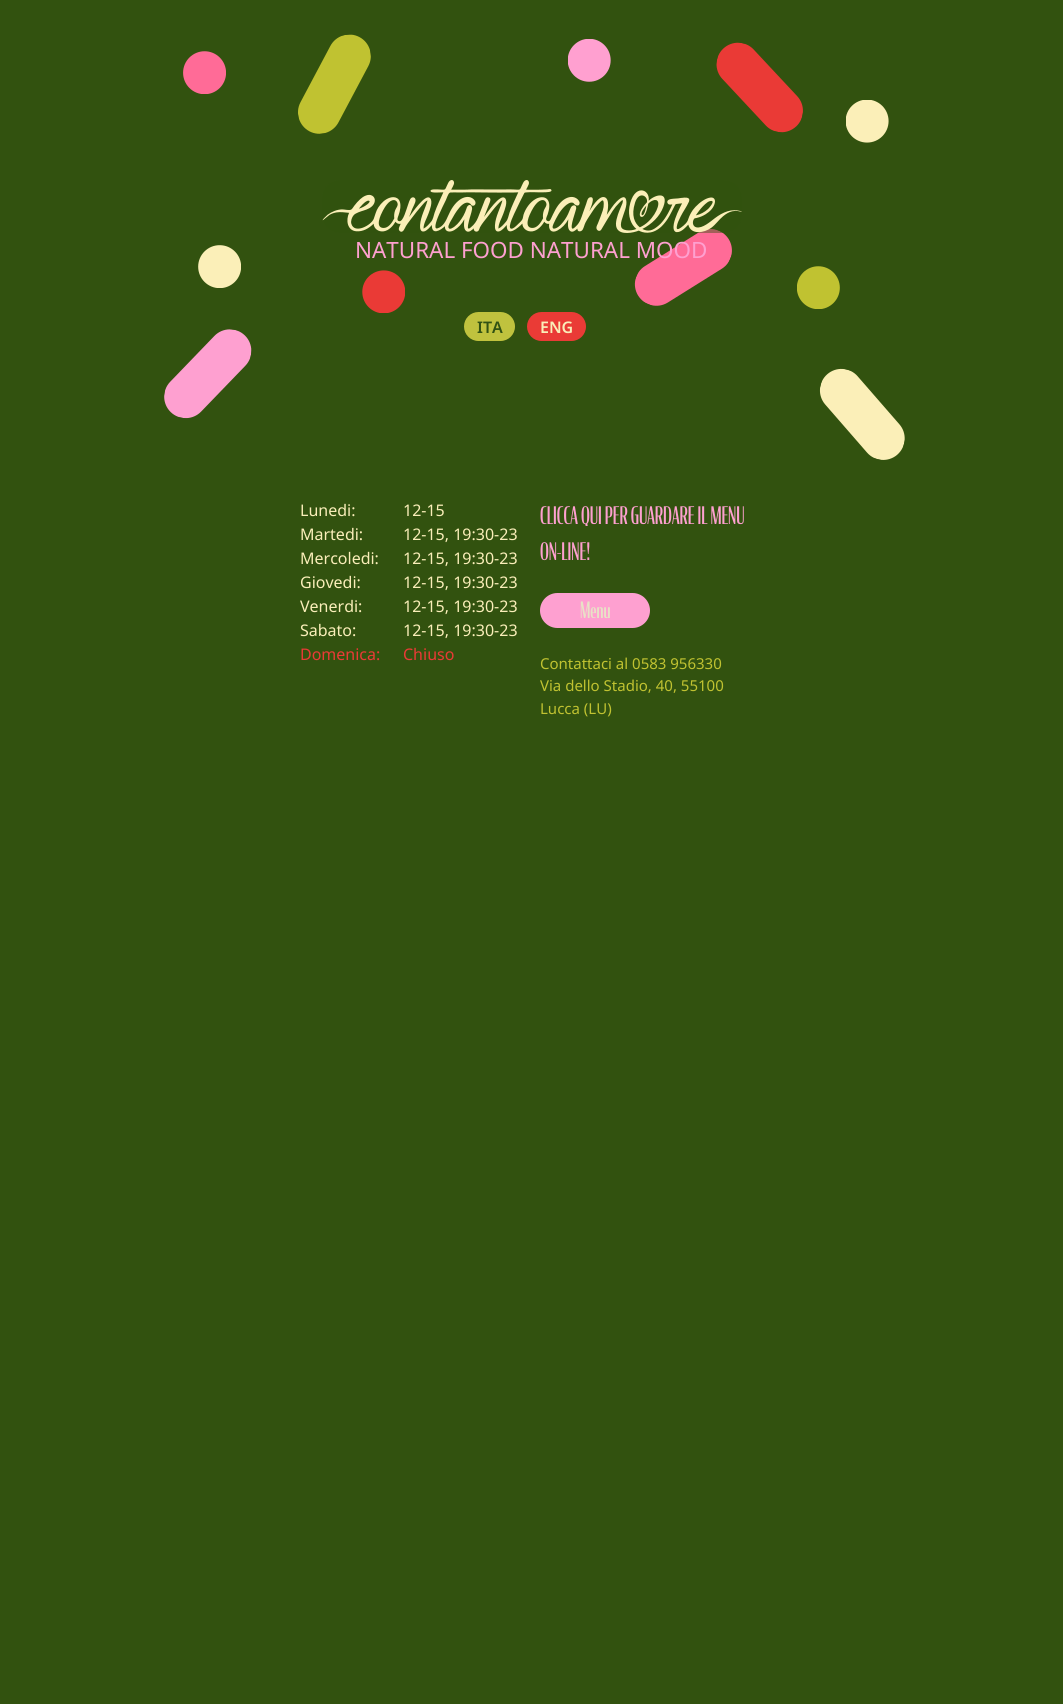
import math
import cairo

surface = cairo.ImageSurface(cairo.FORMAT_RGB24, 1063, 1704)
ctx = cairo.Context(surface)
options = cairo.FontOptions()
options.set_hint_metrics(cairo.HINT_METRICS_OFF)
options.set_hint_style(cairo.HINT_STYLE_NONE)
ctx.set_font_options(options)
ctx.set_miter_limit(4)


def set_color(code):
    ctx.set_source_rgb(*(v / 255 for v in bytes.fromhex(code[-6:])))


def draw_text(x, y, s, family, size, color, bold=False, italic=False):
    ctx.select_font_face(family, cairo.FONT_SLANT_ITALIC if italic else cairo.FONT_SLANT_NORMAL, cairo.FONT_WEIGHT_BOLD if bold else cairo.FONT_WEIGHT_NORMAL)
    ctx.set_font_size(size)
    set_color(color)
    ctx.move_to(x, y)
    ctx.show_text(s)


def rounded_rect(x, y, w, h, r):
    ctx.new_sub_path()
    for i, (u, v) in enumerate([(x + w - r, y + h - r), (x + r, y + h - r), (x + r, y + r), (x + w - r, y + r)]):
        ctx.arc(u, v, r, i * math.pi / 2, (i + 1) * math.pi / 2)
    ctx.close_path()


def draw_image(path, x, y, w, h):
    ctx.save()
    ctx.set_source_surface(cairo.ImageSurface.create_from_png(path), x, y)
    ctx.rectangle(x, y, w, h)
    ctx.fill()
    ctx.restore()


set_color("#32520f")
ctx.paint()
draw_image("assets/img1.png", 164, 34, 741, 426)
ctx.set_source_rgba(0.196, 0.322, 0.059, 0.45)
rounded_rect(322, 180, 420, 53, 18)
ctx.fill()
draw_image("assets/img2.png", 322, 180, 420, 53)
draw_text(355, 258, "NATURAL FOOD NATURAL MOOD", "Noto Sans", 22.4, "#fea0d0")
set_color("#c0c23e")
rounded_rect(464, 312, 51, 29, 14.5)
ctx.fill()
draw_text(477, 333, "ITA", "Noto Sans SemiBold", 16, "#315213")
set_color("#ea3b36")
rounded_rect(527, 312, 59, 29, 14.5)
ctx.fill()
draw_text(540, 333, "ENG", "Noto Sans SemiBold", 16, "#faeeb9")
draw_text(300, 516, "Lunedi:", "Noto Sans", 16, "#faeeb9")
draw_text(403, 516, "12-15", "Noto Sans", 16, "#faeeb9")
draw_text(300, 540, "Martedi:", "Noto Sans", 16, "#faeeb9")
draw_text(403, 540, "12-15, 19:30-23", "Noto Sans", 16, "#faeeb9")
draw_text(300, 564, "Mercoledi:", "Noto Sans", 16, "#faeeb9")
draw_text(403, 564, "12-15, 19:30-23", "Noto Sans", 16, "#faeeb9")
draw_text(300, 588, "Giovedi:", "Noto Sans", 16, "#faeeb9")
draw_text(403, 588, "12-15, 19:30-23", "Noto Sans", 16, "#faeeb9")
draw_text(300, 612, "Venerdi:", "Noto Sans", 16, "#faeeb9")
draw_text(403, 612, "12-15, 19:30-23", "Noto Sans", 16, "#faeeb9")
draw_text(300, 636, "Sabato:", "Noto Sans", 16, "#faeeb9")
draw_text(403, 636, "12-15, 19:30-23", "Noto Sans", 16, "#faeeb9")
draw_text(300, 660, "Domenica:", "Noto Sans", 16, "#ea3a36")
draw_text(403, 660, "Chiuso", "Noto Sans", 16, "#ea3a36")
draw_text(540, 524, "CLICCA QUI PER GUARDARE IL MENU", "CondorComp", 24, "#fea0d0")
draw_text(540, 560, "ON-LINE!", "CondorComp", 24, "#fea0d0")
rounded_rect(540, 593, 110, 35, 17.5)
ctx.fill()
draw_text(580, 618, "Menu", "CondorComp", 22.4, "#e8e2c6")
draw_text(540, 669, "Contattaci al 0583 956330", "Noto Sans", 15, "#c0c231")
draw_text(540, 691, "Via dello Stadio, 40, 55100", "Noto Sans", 15, "#c0c231")
draw_text(540, 714, "Lucca (LU)", "Noto Sans", 15, "#c0c231")
surface.write_to_png("output.png")
